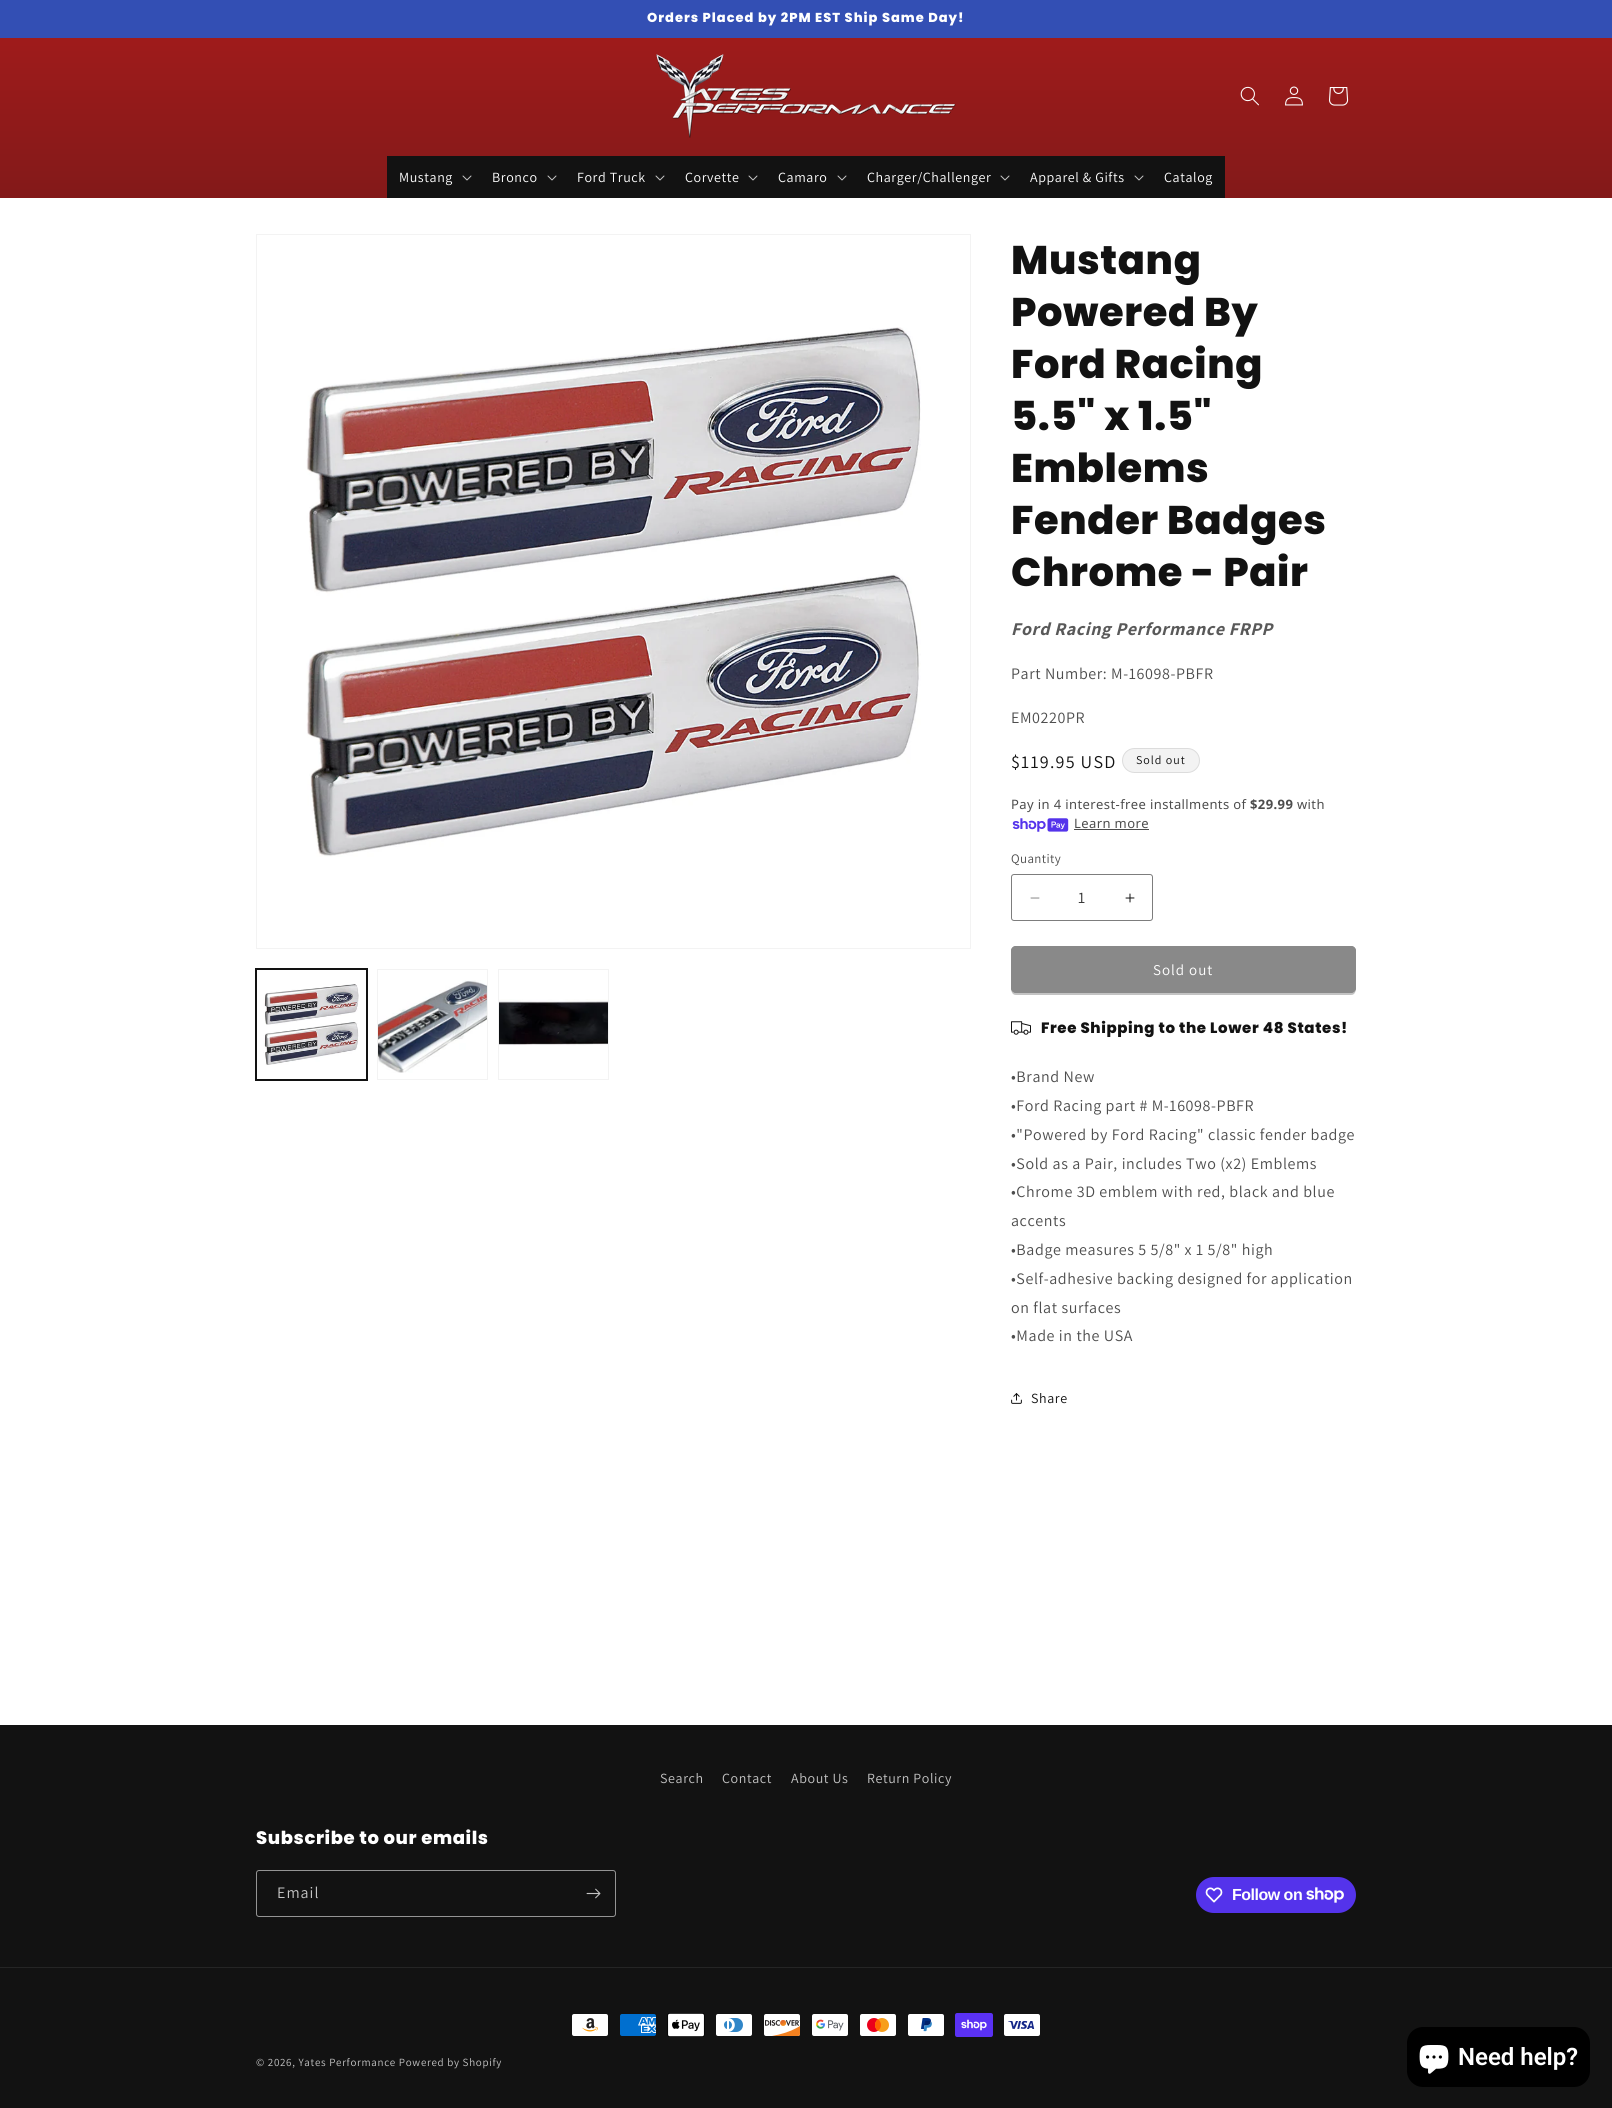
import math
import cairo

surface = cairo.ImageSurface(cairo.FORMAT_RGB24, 1612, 2108)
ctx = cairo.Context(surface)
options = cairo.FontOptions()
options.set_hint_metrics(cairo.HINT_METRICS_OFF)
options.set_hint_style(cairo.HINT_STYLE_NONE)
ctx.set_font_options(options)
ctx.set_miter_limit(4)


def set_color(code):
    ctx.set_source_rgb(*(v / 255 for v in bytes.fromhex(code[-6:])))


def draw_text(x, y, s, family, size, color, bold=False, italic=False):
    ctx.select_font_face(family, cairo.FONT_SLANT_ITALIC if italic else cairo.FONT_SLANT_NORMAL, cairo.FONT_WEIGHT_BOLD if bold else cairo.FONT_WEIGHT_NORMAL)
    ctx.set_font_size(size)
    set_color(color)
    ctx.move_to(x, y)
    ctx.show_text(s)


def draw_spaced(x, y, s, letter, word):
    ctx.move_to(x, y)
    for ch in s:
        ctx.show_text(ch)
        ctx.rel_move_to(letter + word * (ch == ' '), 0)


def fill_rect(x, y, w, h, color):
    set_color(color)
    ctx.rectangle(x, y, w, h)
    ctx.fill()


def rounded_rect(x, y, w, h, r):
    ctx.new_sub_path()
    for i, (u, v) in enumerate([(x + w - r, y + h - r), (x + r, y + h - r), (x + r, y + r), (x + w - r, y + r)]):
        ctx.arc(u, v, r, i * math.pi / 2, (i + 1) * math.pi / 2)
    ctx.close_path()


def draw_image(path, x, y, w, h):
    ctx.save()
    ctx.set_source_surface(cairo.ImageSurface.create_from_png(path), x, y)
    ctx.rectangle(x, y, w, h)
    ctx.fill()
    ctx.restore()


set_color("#ffffff")
ctx.paint()
fill_rect(0, 0, 1612, 38, "#334fb4")
ctx.select_font_face("Poppins ExtraBold")
ctx.set_font_size(13)
set_color("#ffffff")
draw_spaced(647, 22, "Orders Placed by 2PM EST Ship Same Day!", 1, 0)
gradient = cairo.LinearGradient(806, 2108, 806, 0)
gradient.add_color_stop_rgba(0.6, 0.071, 0.071, 0.071, 1)
gradient.add_color_stop_rgba(0.98, 0.62, 0.106, 0.106, 1)
ctx.set_source(gradient)
ctx.rectangle(0, 38, 1612, 160)
ctx.fill()
draw_image("assets/img1.png", 656, 54, 300, 84)
draw_image("assets/img2.png", 1240, 86, 19, 20)
draw_image("assets/img3.png", 1285, 86, 18, 20)
draw_image("assets/img4.png", 1329, 87, 20, 19)
fill_rect(387, 156, 838, 42, "#121212")
ctx.select_font_face("Assistant")
ctx.set_font_size(14)
set_color("#ffffff")
draw_spaced(399, 182, "Mustang", 0.6, 0)
draw_image("assets/img5.png", 462, 175, 10, 6)
draw_spaced(492, 182, "Bronco", 0.6, 0)
draw_image("assets/img5.png", 547, 175, 10, 6)
draw_spaced(577, 182, "Ford Truck", 0.6, 0)
draw_image("assets/img5.png", 655, 175, 10, 6)
draw_spaced(685, 182, "Corvette", 0.6, 0)
draw_image("assets/img5.png", 748, 175, 10, 6)
draw_spaced(778, 182, "Camaro", 0.6, 0)
draw_image("assets/img5.png", 837, 175, 10, 6)
draw_spaced(867, 182, "Charger/Challenger", 0.6, 0)
draw_image("assets/img5.png", 1000, 175, 10, 6)
draw_spaced(1030, 182, "Apparel & Gifts", 0.6, 0)
draw_image("assets/img5.png", 1134, 175, 10, 6)
draw_spaced(1164, 182, "Catalog", 0.6, 0)
ctx.rectangle(256.5, 234.5, 714, 714)
set_color("#f3f3f3")
ctx.set_line_width(1)
ctx.stroke()
draw_image("assets/img6.png", 306, 327, 615, 530)
ctx.rectangle(255.5, 968.5, 112, 112)
set_color("#121212")
ctx.stroke()
ctx.rectangle(256.5, 969.5, 110, 110)
ctx.stroke()
draw_image("assets/img7.png", 263, 984, 96, 81)
ctx.rectangle(377.5, 969.5, 110, 110)
set_color("#f3f3f3")
ctx.stroke()
draw_image("assets/img8.png", 378, 980, 109, 93)
ctx.rectangle(498.5, 969.5, 110, 110)
ctx.stroke()
draw_image("assets/img9.png", 499, 999, 109, 47)
ctx.select_font_face("Poppins ExtraBold")
ctx.set_font_size(40)
set_color("#121212")
draw_spaced(1011, 274, "Mustang", 0.6, 0)
draw_spaced(1011, 326, "Powered By", 0.6, 0)
draw_spaced(1011, 378, "Ford Racing", 0.6, 0)
draw_spaced(1011, 430, "5.5\" x 1.5\"", 0.6, 0)
draw_spaced(1011, 482, "Emblems", 0.6, 0)
draw_spaced(1011, 534, "Fender Badges", 0.6, 0)
draw_spaced(1011, 586, "Chrome - Pair", 0.6, 0)
ctx.select_font_face("Assistant", cairo.FONT_SLANT_ITALIC, cairo.FONT_WEIGHT_BOLD)
ctx.set_font_size(18)
set_color("#595959")
draw_spaced(1011, 635, "Ford Racing Performance FRPP", 0.6, 0)
ctx.select_font_face("Assistant")
ctx.set_font_size(16)
set_color("#4d4d4d")
draw_spaced(1011, 679, "Part Number: M-16098-PBFR", 0.6, 0)
draw_spaced(1011, 723, "EM0220PR", 0.6, 0)
ctx.set_font_size(18)
set_color("#121212")
draw_spaced(1011, 768, "$119.95 USD", 1.25, 0)
set_color("#f3f3f3")
rounded_rect(1122, 748, 78, 25, 12.5)
ctx.fill()
rounded_rect(1122.5, 748.5, 77, 24, 12)
ctx.set_source_rgba(0.071, 0.071, 0.071, 0.1)
ctx.stroke()
ctx.set_font_size(12)
set_color("#121212")
draw_spaced(1136, 764, "Sold out", 1, 0)
ctx.select_font_face("Noto Sans")
ctx.set_font_size(13)
set_color("#4d4d4d")
draw_spaced(1011, 809, "Pay in 4 interest-free installments of", 0.4, 0)
ctx.select_font_face("Noto Sans", cairo.FONT_SLANT_NORMAL, cairo.FONT_WEIGHT_BOLD)
draw_spaced(1250, 809, "$29.99", 0.4, 0)
ctx.select_font_face("Noto Sans")
draw_spaced(1297, 809, "with", 0.4, 0)
draw_image("assets/img10.png", 1012, 818, 57, 14)
draw_spaced(1074, 828, "Learn more", 0.4, 0)
fill_rect(1074, 829, 75, 1, "#4d4d4d")
ctx.select_font_face("Assistant")
draw_spaced(1011, 863, "Quantity", 0.4, 0)
draw_image("assets/img11.png", 1030, 897, 10, 2)
draw_image("assets/img12.png", 1125, 893, 10, 10)
rounded_rect(1011.5, 874.5, 141, 46, 2.5)
set_color("#7d7d7d")
ctx.stroke()
draw_text(1078, 903, "1", "Assistant", 16, "#363636")
set_color("#898989")
rounded_rect(1011, 946, 345, 47, 5)
ctx.fill()
ctx.set_source_rgba(0.537, 0.537, 0.537, 0.5)
ctx.new_path()
ctx.move_to(1011, 988)
ctx.curve_to(1011, 991, 1012, 995, 1016, 995)
ctx.line_to(1351, 995)
ctx.curve_to(1355, 995, 1356, 991, 1356, 988)
ctx.curve_to(1356, 991, 1354, 993, 1351, 993)
ctx.line_to(1016, 993)
ctx.curve_to(1013, 993, 1011, 991, 1011, 988)
ctx.close_path()
ctx.fill()
rounded_rect(1011.5, 946.5, 344, 46, 4.5)
set_color("#898989")
ctx.stroke()
ctx.set_font_size(15)
set_color("#ffffff")
draw_spaced(1153, 975, "Sold out", 1, 0)
draw_image("assets/img13.png", 1011, 1021, 20, 14)
ctx.select_font_face("Poppins ExtraBold")
set_color("#121212")
draw_spaced(1041, 1033, "Free Shipping to the Lower 48 States!", 0.6, 0)
ctx.select_font_face("Assistant")
ctx.set_font_size(16)
set_color("#4d4d4d")
draw_spaced(1011, 1082, "•Brand New", 0.6, 0)
draw_spaced(1011, 1111, "•Ford Racing part # M-16098-PBFR", 0.6, 0)
draw_spaced(1011, 1140, "•\"Powered by Ford Racing\" classic fender badge", 0.6, 0)
draw_spaced(1011, 1169, "•Sold as a Pair, includes Two (x2) Emblems", 0.6, 0)
draw_spaced(1011, 1197, "•Chrome 3D emblem with red, black and blue", 0.6, 0)
draw_spaced(1011, 1226, "accents", 0.6, 0)
draw_spaced(1011, 1255, "•Badge measures 5 5/8\" x 1 5/8\" high", 0.6, 0)
draw_spaced(1011, 1284, "•Self-adhesive backing designed for application", 0.6, 0)
draw_spaced(1011, 1313, "on flat surfaces", 0.6, 0)
draw_spaced(1011, 1341, "•Made in the USA", 0.6, 0)
draw_image("assets/img14.png", 1011, 1393, 11, 11)
ctx.set_font_size(14)
set_color("#121212")
draw_spaced(1031, 1403, "Share", 0.6, 0)
fill_rect(0, 1725, 1612, 383, "#121212")
set_color("#c4c4c4")
draw_spaced(660, 1783, "Search", 0.6, 0)
draw_spaced(722, 1783, "Contact", 0.6, 0)
draw_spaced(791, 1783, "About Us", 0.6, 0)
draw_spaced(867, 1783, "Return Policy", 0.6, 0)
ctx.select_font_face("Poppins ExtraBold")
ctx.set_font_size(18)
set_color("#ffffff")
draw_spaced(256, 1844, "Subscribe to our emails", 0.6, 0)
rounded_rect(256.5, 1870.5, 359, 46, 2.5)
set_color("#949494")
ctx.stroke()
ctx.select_font_face("Assistant")
ctx.set_font_size(16)
set_color("#c4c4c4")
draw_spaced(277, 1898, "Email", 1, 0)
draw_image("assets/img15.png", 586, 1888, 15, 11)
set_color("#5433eb")
rounded_rect(1196, 1877, 160, 36, 18)
ctx.fill()
draw_image("assets/img16.png", 1205, 1887, 18, 16)
ctx.select_font_face("Liberation Sans", cairo.FONT_SLANT_NORMAL, cairo.FONT_WEIGHT_BOLD)
set_color("#ffffff")
draw_spaced(1232, 1900, "Follow on", -0.5, 0)
draw_image("assets/img17.png", 1306, 1887, 38, 16)
fill_rect(0, 1967, 1612, 1, "#252525")
draw_image("assets/img18.png", 572, 2014, 36, 22)
draw_image("assets/img19.png", 620, 2014, 36, 22)
draw_image("assets/img20.png", 667, 2013, 38, 24)
draw_image("assets/img21.png", 716, 2014, 36, 22)
draw_image("assets/img22.png", 764, 2014, 36, 22)
draw_image("assets/img23.png", 812, 2014, 36, 22)
draw_image("assets/img24.png", 860, 2014, 36, 22)
draw_image("assets/img25.png", 908, 2014, 36, 22)
draw_image("assets/img26.png", 955, 2013, 38, 24)
draw_image("assets/img27.png", 1004, 2014, 36, 22)
ctx.select_font_face("Assistant")
ctx.set_font_size(11)
set_color("#c4c4c4")
draw_spaced(256, 2066, "© 2026, Yates Performance Powered by Shopify", 0.7, 0)
set_color("#000000")
rounded_rect(1407, 2027, 183, 60, 16)
ctx.fill()
draw_image("assets/img28.png", 1419, 2045, 30, 29)
draw_text(1458, 2065, "Need help?", "Roboto SemiBold", 24, "#ffffff")
surface.write_to_png("output.png")
